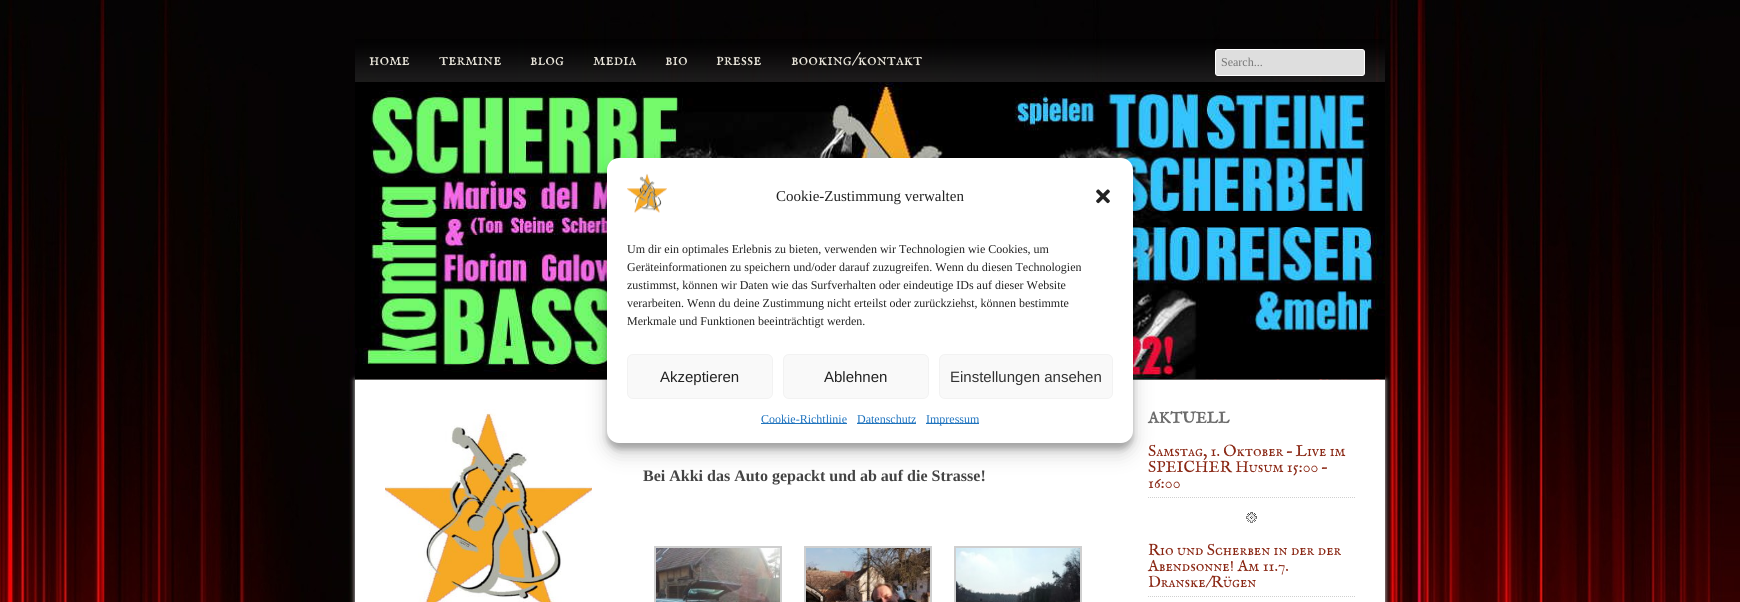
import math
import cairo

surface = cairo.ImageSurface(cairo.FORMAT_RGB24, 1740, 602)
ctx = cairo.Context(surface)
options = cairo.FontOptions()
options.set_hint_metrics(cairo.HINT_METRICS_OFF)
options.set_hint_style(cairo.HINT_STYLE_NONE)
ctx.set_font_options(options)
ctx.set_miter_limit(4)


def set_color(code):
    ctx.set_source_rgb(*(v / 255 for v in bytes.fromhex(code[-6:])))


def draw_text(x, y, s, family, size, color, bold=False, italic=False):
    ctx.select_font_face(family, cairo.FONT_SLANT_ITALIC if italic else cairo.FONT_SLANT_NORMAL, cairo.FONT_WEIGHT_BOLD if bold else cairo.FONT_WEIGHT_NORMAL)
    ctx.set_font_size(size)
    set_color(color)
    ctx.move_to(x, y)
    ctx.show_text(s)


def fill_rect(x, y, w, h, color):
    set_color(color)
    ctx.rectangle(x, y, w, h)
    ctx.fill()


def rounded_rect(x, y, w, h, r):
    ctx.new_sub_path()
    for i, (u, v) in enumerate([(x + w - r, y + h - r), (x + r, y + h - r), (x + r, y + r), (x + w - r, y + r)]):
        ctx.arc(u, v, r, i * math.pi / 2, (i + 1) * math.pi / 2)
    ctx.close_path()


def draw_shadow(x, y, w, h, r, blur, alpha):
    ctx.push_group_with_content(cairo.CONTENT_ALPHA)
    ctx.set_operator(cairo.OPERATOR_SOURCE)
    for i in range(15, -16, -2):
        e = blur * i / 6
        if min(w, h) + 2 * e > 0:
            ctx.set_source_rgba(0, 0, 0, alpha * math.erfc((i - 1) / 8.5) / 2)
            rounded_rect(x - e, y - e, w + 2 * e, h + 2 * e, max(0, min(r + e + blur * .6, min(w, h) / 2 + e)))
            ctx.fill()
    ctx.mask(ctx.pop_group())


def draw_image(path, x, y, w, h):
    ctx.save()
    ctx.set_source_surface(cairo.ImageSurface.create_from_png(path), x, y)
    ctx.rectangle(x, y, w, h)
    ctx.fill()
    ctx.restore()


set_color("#ffffff")
ctx.paint()
draw_image("assets/img1.png", 0, 0, 1740, 602)
draw_image("assets/img2.png", 355, 39, 1030, 43)
draw_text(369, 65, "home", "IM FELL English SC", 18, "#e8e4d9")
draw_text(439, 65, "termine", "IM FELL English SC", 18, "#e8e4d9")
draw_text(530, 65, "blog", "IM FELL English SC", 18, "#e8e4d9")
draw_text(593, 65, "media", "IM FELL English SC", 18, "#e8e4d9")
draw_text(665, 65, "bio", "IM FELL English SC", 18, "#e8e4d9")
draw_text(716, 65, "presse", "IM FELL English SC", 18, "#e8e4d9")
draw_text(791, 65, "booking/kontakt", "IM FELL English SC", 18, "#e8e4d9")
set_color("#dedede")
rounded_rect(1215.5, 49.5, 149, 26, 2.5)
ctx.fill_preserve()
set_color("#ffffff")
ctx.set_line_width(1)
ctx.stroke()
draw_text(1221, 66, "Search...", "Liberation Serif", 12, "#757575")
set_color("#d8d8d8")
draw_shadow(355, 380, 1030, 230, 0, 2.5, 1)
draw_image("assets/img3.png", 355, 82, 1030, 297)
fill_rect(355, 380, 1030, 222, "#ffffff")
draw_image("assets/img4.png", 385, 409, 207, 193)
draw_text(643, 481, "Bei Akki das Auto gepackt und ab auf die Strasse!", "Liberation Serif", 16, "#444444", bold=True)
ctx.rectangle(655, 547, 126, 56)
set_color("#cfcfcf")
ctx.set_line_width(2)
ctx.stroke()
draw_image("assets/img5.png", 656, 548, 124, 54)
ctx.rectangle(805, 547, 126, 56)
ctx.stroke()
draw_image("assets/img6.png", 806, 548, 124, 54)
ctx.rectangle(955, 547, 126, 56)
ctx.stroke()
draw_image("assets/img7.png", 956, 548, 124, 54)
draw_text(1148, 423, "AKTUELL", "IM FELL English SC", 16, "#6c6c6c", bold=True)
draw_image("assets/img8.png", 1246, 512, 11, 11)
ctx.new_path()
ctx.move_to(1148, 497.5)
ctx.line_to(1355, 497.5)
set_color("#d0d0d0")
ctx.set_line_width(1)
ctx.set_dash([1, 1])
ctx.stroke()
draw_text(1148, 456, "Samstag, 1. Oktober – Live im", "IM FELL English SC", 16, "#8a2714")
draw_text(1148, 472, "SPEICHER Husum 15:00 –", "IM FELL English SC", 16, "#8a2714")
draw_text(1148, 488, "16:00", "IM FELL English SC", 16, "#8a2714")
ctx.new_path()
ctx.move_to(1148, 596.5)
ctx.line_to(1355, 596.5)
set_color("#d0d0d0")
ctx.stroke()
draw_text(1148, 555, "Rio und Scherben in der der", "IM FELL English SC", 16, "#8a2714")
draw_text(1148, 571, "Abendsonne! Am 11.7.", "IM FELL English SC", 16, "#8a2714")
draw_text(1148, 587, "Dranske/Rügen", "IM FELL English SC", 16, "#8a2714")
set_color("#000000")
draw_shadow(607, 164, 526, 285, 12, 3, 0.23)
draw_shadow(607, 168, 526, 285, 12, 10, 0.19)
set_color("#ffffff")
rounded_rect(607, 158, 526, 285, 12)
ctx.fill()
draw_image("assets/img9.png", 627, 173, 40, 40)
draw_text(776, 201, "Cookie-Zustimmung verwalten", "Liberation Serif", 15, "#222222")
draw_image("assets/img10.png", 1096, 189, 14, 15)
draw_text(627, 253, "Um dir ein optimales Erlebnis zu bieten, verwenden wir Technologien wie Cookies, um", "Liberation Serif", 12, "#222222")
draw_text(627, 271, "Geräteinformationen zu speichern und/oder darauf zuzugreifen. Wenn du diesen Technologien", "Liberation Serif", 12, "#222222")
draw_text(627, 289, "zustimmst, können wir Daten wie das Surfverhalten oder eindeutige IDs auf dieser Website", "Liberation Serif", 12, "#222222")
draw_text(627, 307, "verarbeiten. Wenn du deine Zustimmung nicht erteilst oder zurückziehst, können bestimmte", "Liberation Serif", 12, "#222222")
draw_text(627, 325, "Merkmale und Funktionen beeinträchtigt werden.", "Liberation Serif", 12, "#222222")
set_color("#f9f9f9")
rounded_rect(627.5, 354.5, 145, 44, 5.5)
ctx.fill_preserve()
set_color("#f2f2f2")
ctx.set_dash([])
ctx.stroke()
draw_text(660, 382, "Akzeptieren", "Liberation Sans", 15, "#222222")
set_color("#f9f9f9")
rounded_rect(783.5, 354.5, 145, 44, 5.5)
ctx.fill_preserve()
set_color("#f2f2f2")
ctx.stroke()
draw_text(824, 382, "Ablehnen", "Liberation Sans", 15, "#222222")
set_color("#f9f9f9")
rounded_rect(939.5, 354.5, 173, 44, 5.5)
ctx.fill_preserve()
set_color("#f2f2f2")
ctx.stroke()
draw_text(950, 382, "Einstellungen ansehen", "Liberation Sans", 15, "#333333")
fill_rect(761, 423, 86, 1, "#1e73be")
draw_text(761, 423, "Cookie-Richtlinie", "Liberation Serif", 12, "#1e73be")
fill_rect(857, 423, 59, 1, "#1e73be")
draw_text(857, 423, "Datenschutz", "Liberation Serif", 12, "#1e73be")
fill_rect(926, 423, 53, 1, "#1e73be")
draw_text(926, 423, "Impressum", "Liberation Serif", 12, "#1e73be")
surface.write_to_png("output.png")
